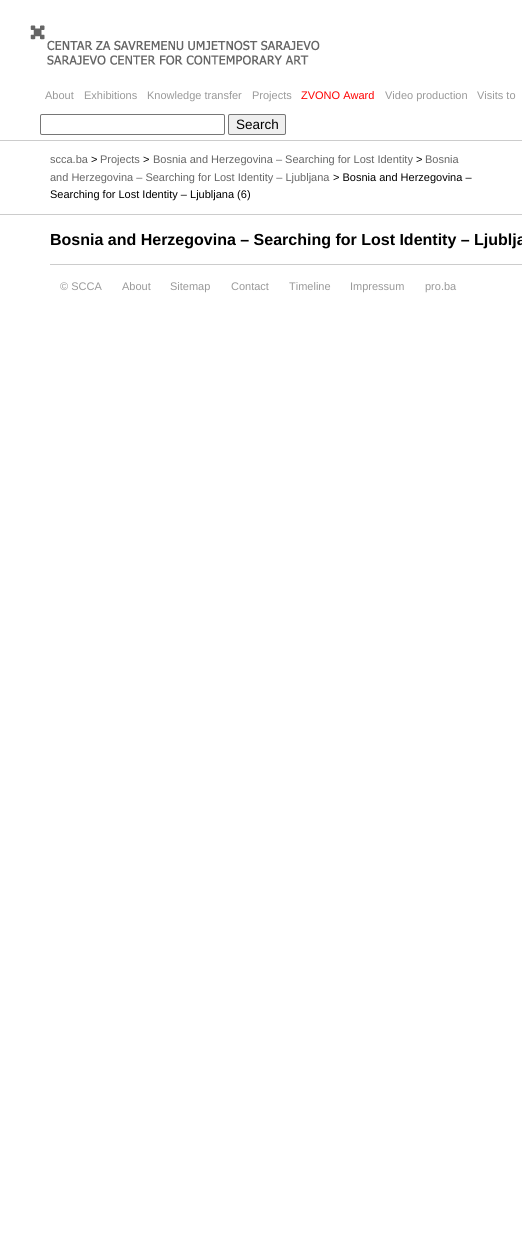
import math
import cairo

surface = cairo.ImageSurface(cairo.FORMAT_RGB24, 522, 1243)
ctx = cairo.Context(surface)
options = cairo.FontOptions()
options.set_hint_metrics(cairo.HINT_METRICS_OFF)
options.set_hint_style(cairo.HINT_STYLE_NONE)
ctx.set_font_options(options)
ctx.set_miter_limit(4)


def set_color(code):
    ctx.set_source_rgb(*(v / 255 for v in bytes.fromhex(code[-6:])))


def draw_text(x, y, s, family, size, color, bold=False, italic=False):
    ctx.select_font_face(family, cairo.FONT_SLANT_ITALIC if italic else cairo.FONT_SLANT_NORMAL, cairo.FONT_WEIGHT_BOLD if bold else cairo.FONT_WEIGHT_NORMAL)
    ctx.set_font_size(size)
    set_color(color)
    ctx.move_to(x, y)
    ctx.show_text(s)


def fill_rect(x, y, w, h, color):
    set_color(color)
    ctx.rectangle(x, y, w, h)
    ctx.fill()


def rounded_rect(x, y, w, h, r):
    ctx.new_sub_path()
    for i, (u, v) in enumerate([(x + w - r, y + h - r), (x + r, y + h - r), (x + r, y + r), (x + w - r, y + r)]):
        ctx.arc(u, v, r, i * math.pi / 2, (i + 1) * math.pi / 2)
    ctx.close_path()


def draw_image(path, x, y, w, h):
    ctx.save()
    ctx.set_source_surface(cairo.ImageSurface.create_from_png(path), x, y)
    ctx.rectangle(x, y, w, h)
    ctx.fill()
    ctx.restore()


set_color("#ffffff")
ctx.paint()
draw_image("assets/img1.png", 30, 25, 290, 40)
fill_rect(0, 140, 522, 1, "#cccccc")
draw_text(45, 99, "About", "Liberation Sans", 11, "#999999")
draw_text(84, 99, "Exhibitions", "Liberation Sans", 11, "#999999")
draw_text(147, 99, "Knowledge transfer", "Liberation Sans", 11, "#999999")
draw_text(252, 99, "Projects", "Liberation Sans", 11, "#999999")
draw_text(301, 99, "ZVONO Award", "Liberation Sans", 11, "#ff0000")
draw_text(385, 99, "Video production", "Liberation Sans", 11, "#999999")
draw_text(477, 99, "Visits to", "Liberation Sans", 11, "#999999")
rounded_rect(40.5, 114.5, 184, 20, 1.5)
set_color("#767676")
ctx.set_line_width(1)
ctx.stroke()
set_color("#efefef")
rounded_rect(228.5, 114.5, 57, 20, 1.5)
ctx.fill_preserve()
set_color("#767676")
ctx.stroke()
draw_text(236, 129, "Search", "Liberation Sans", 13.5, "#000000")
fill_rect(0, 214, 522, 1, "#cccccc")
draw_text(50, 163, "scca.ba", "Liberation Sans", 11, "#666666")
draw_text(91, 163, ">", "Liberation Sans", 11, "#000000")
draw_text(100, 163, "Projects", "Liberation Sans", 11, "#666666")
draw_text(143, 163, ">", "Liberation Sans", 11, "#000000")
draw_text(153, 163, "Bosnia and Herzegovina – Searching for Lost Identity", "Liberation Sans", 11, "#666666")
draw_text(416, 163, ">", "Liberation Sans", 11, "#000000")
draw_text(425, 163, "Bosnia", "Liberation Sans", 11, "#666666")
draw_text(50, 181, "and Herzegovina – Searching for Lost Identity – Ljubljana", "Liberation Sans", 11, "#666666")
draw_text(333, 181, "> Bosnia and Herzegovina –", "Liberation Sans", 11, "#000000")
draw_text(50, 198, "Searching for Lost Identity – Ljubljana (6)", "Liberation Sans", 11, "#000000")
draw_text(50, 245, "Bosnia and Herzegovina – Searching for Lost Identity – Ljublja", "Liberation Sans", 16, "#000000", bold=True)
fill_rect(50, 264, 472, 1, "#cccccc")
draw_text(60, 290, "© SCCA", "Liberation Sans", 11, "#999999")
draw_text(122, 290, "About", "Liberation Sans", 11, "#999999")
draw_text(170, 290, "Sitemap", "Liberation Sans", 11, "#999999")
draw_text(231, 290, "Contact", "Liberation Sans", 11, "#999999")
draw_text(289, 290, "Timeline", "Liberation Sans", 11, "#999999")
draw_text(350, 290, "Impressum", "Liberation Sans", 11, "#999999")
draw_text(425, 290, "pro.ba", "Liberation Sans", 11, "#999999")
surface.write_to_png("output.png")
